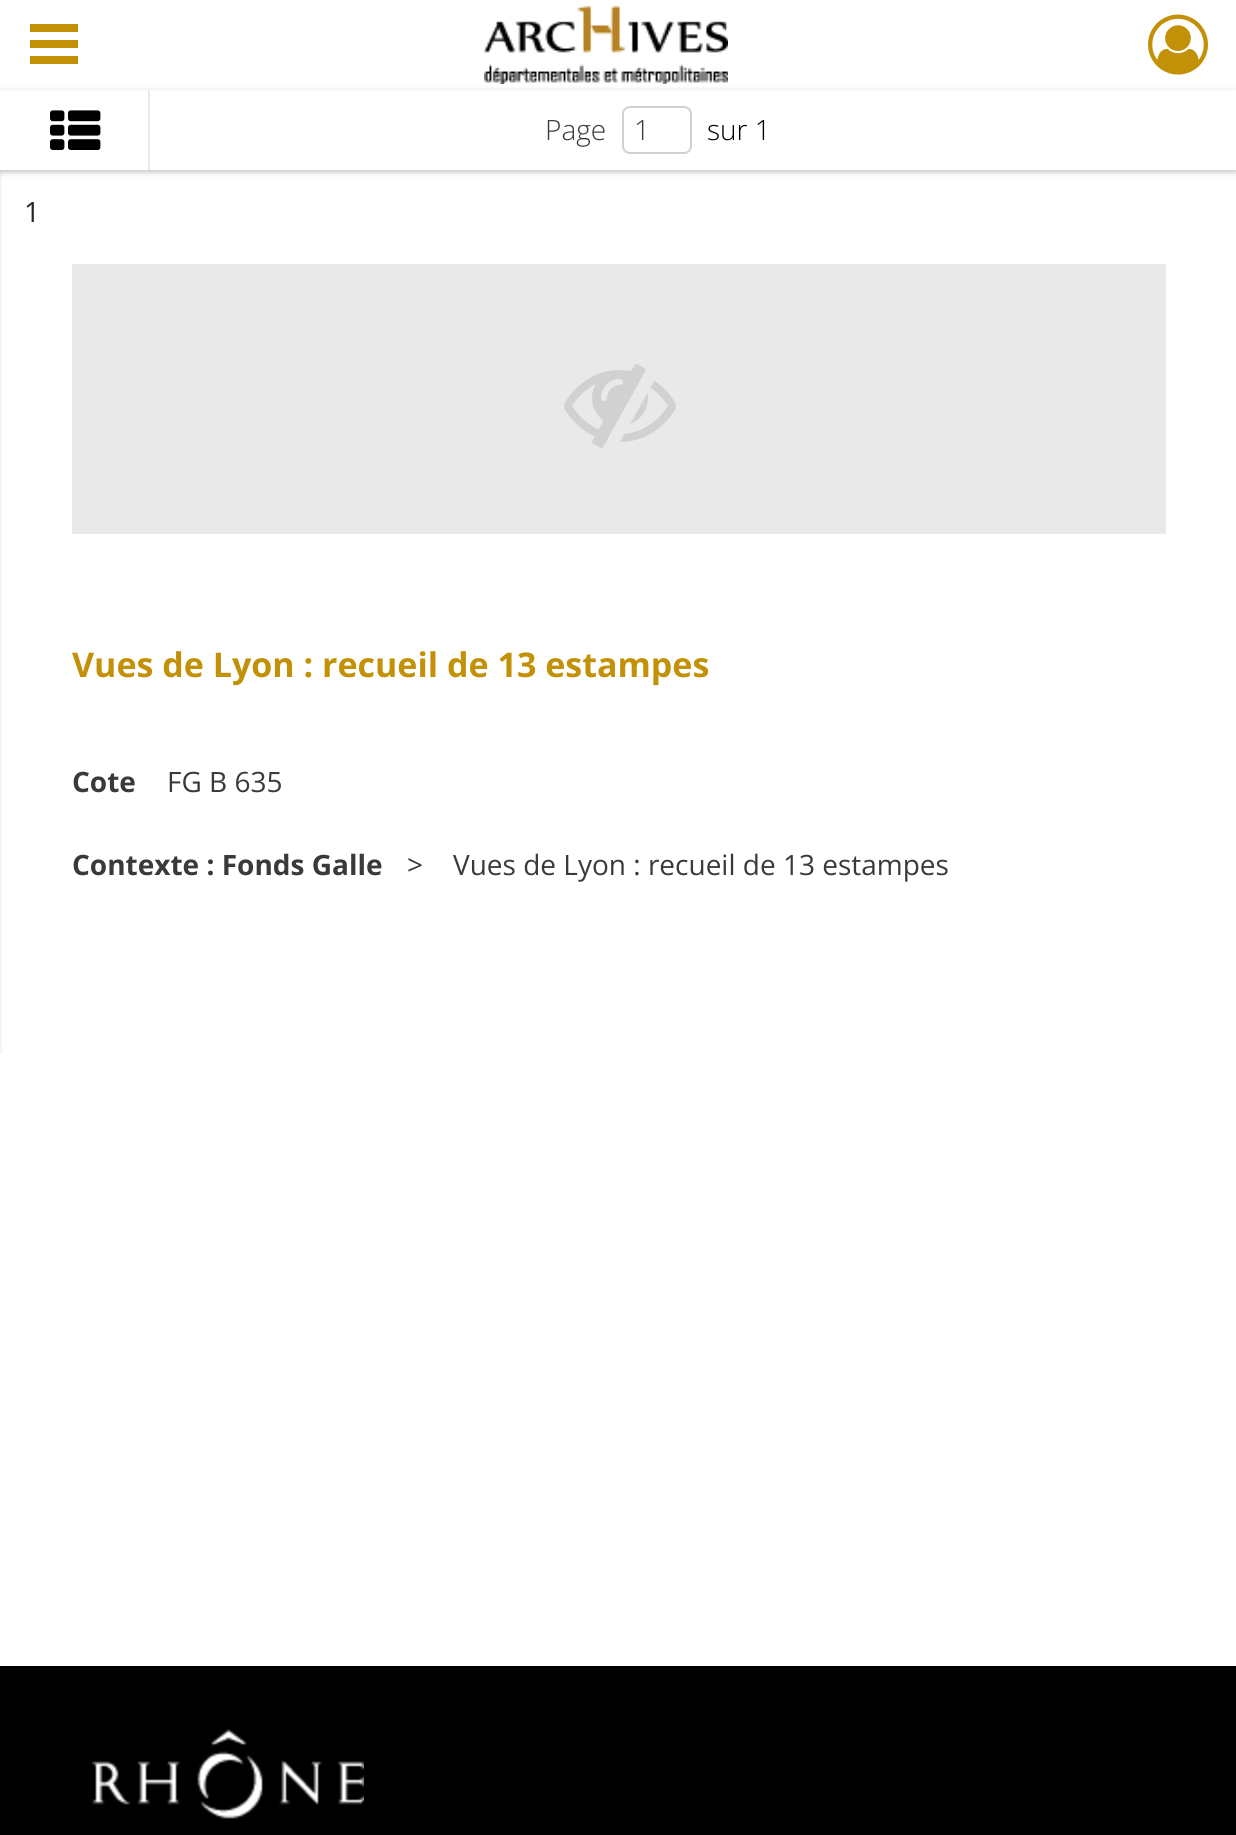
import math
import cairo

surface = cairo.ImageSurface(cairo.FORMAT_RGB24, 1236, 1835)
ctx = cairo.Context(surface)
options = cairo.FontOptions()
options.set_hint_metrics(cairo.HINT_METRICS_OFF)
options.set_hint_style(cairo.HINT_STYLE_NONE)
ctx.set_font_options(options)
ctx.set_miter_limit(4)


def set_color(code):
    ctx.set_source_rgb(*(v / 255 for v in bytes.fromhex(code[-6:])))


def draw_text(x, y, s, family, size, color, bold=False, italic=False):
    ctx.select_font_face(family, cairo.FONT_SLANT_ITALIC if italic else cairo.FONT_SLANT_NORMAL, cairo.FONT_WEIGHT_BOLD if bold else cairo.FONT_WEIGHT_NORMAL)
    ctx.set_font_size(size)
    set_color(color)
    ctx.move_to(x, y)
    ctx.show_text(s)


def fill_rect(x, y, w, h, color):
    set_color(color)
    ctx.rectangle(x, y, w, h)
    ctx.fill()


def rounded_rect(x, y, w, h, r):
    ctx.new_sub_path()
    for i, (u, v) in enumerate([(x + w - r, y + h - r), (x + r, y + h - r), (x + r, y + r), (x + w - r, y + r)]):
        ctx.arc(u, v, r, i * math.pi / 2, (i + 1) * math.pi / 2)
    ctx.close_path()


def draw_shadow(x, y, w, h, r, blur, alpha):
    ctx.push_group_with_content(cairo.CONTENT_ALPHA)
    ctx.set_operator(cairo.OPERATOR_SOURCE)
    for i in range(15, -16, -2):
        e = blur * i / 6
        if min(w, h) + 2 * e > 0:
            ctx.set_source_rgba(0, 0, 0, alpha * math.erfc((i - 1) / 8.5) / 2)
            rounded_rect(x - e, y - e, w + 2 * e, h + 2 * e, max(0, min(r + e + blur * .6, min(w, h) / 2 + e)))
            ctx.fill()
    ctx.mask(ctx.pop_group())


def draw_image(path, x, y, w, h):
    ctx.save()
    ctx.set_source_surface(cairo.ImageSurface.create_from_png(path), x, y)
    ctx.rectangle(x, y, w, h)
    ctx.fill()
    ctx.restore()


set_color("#ffffff")
ctx.paint()
fill_rect(30, 24, 48, 8, "#c39108")
fill_rect(30, 40, 48, 8, "#c39108")
fill_rect(30, 56, 48, 8, "#c39108")
draw_image("assets/img1.png", 484, 6, 244, 78)
draw_image("assets/img2.png", 1148, 14, 60, 61)
fill_rect(0, 170, 2, 884, "#f5f5f5")
ctx.save()
ctx.set_fill_rule(cairo.FILL_RULE_EVEN_ODD)
ctx.new_path()
ctx.move_to(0, 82)
ctx.line_to(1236, 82)
ctx.line_to(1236, 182)
ctx.line_to(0, 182)
ctx.close_path()
ctx.move_to(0, 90)
ctx.line_to(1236, 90)
ctx.line_to(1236, 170)
ctx.line_to(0, 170)
ctx.close_path()
ctx.clip()
set_color("#000000")
draw_shadow(0, 92, 1236, 80, 0, 3, 0.25)
ctx.restore()
fill_rect(148, 90, 2, 80, "#e9e9e9")
draw_image("assets/img3.png", 50, 110, 51, 40)
draw_text(545, 140, "Page", "Open Sans Light", 28, "#3a3a3a")
rounded_rect(623, 107, 68, 46, 7)
set_color("#d1d1d1")
ctx.stroke()
draw_text(634, 140, "1", "Open Sans Light", 28, "#3a3a3a")
draw_text(707, 140, "sur 1", "Open Sans Light", 28, "#000000")
draw_text(24, 222, "1", "Open Sans", 28, "#212529")
fill_rect(72, 264, 1094, 270, "#e9e9e9")
draw_image("assets/img4.png", 564, 364, 112, 84)
draw_text(72, 677, "Vues de Lyon : recueil de 13 estampes", "Open Sans", 34, "#c39108", bold=True)
draw_text(72, 792, "Cote", "Open Sans", 28, "#3a3a3a", bold=True)
draw_text(167, 792, "FG B 635", "Open Sans", 28, "#3a3a3a")
draw_text(72, 875, "Contexte : Fonds Galle", "Open Sans", 28, "#3a3a3a", bold=True)
draw_text(407, 875, ">", "Open Sans", 28, "#3a3a3a")
draw_text(453, 875, "Vues de Lyon : recueil de 13 estampes", "Open Sans", 28, "#3a3a3a")
fill_rect(0, 1666, 1236, 169, "#000000")
draw_image("assets/img5.png", 91, 1729, 273, 90)
surface.write_to_png("output.png")
